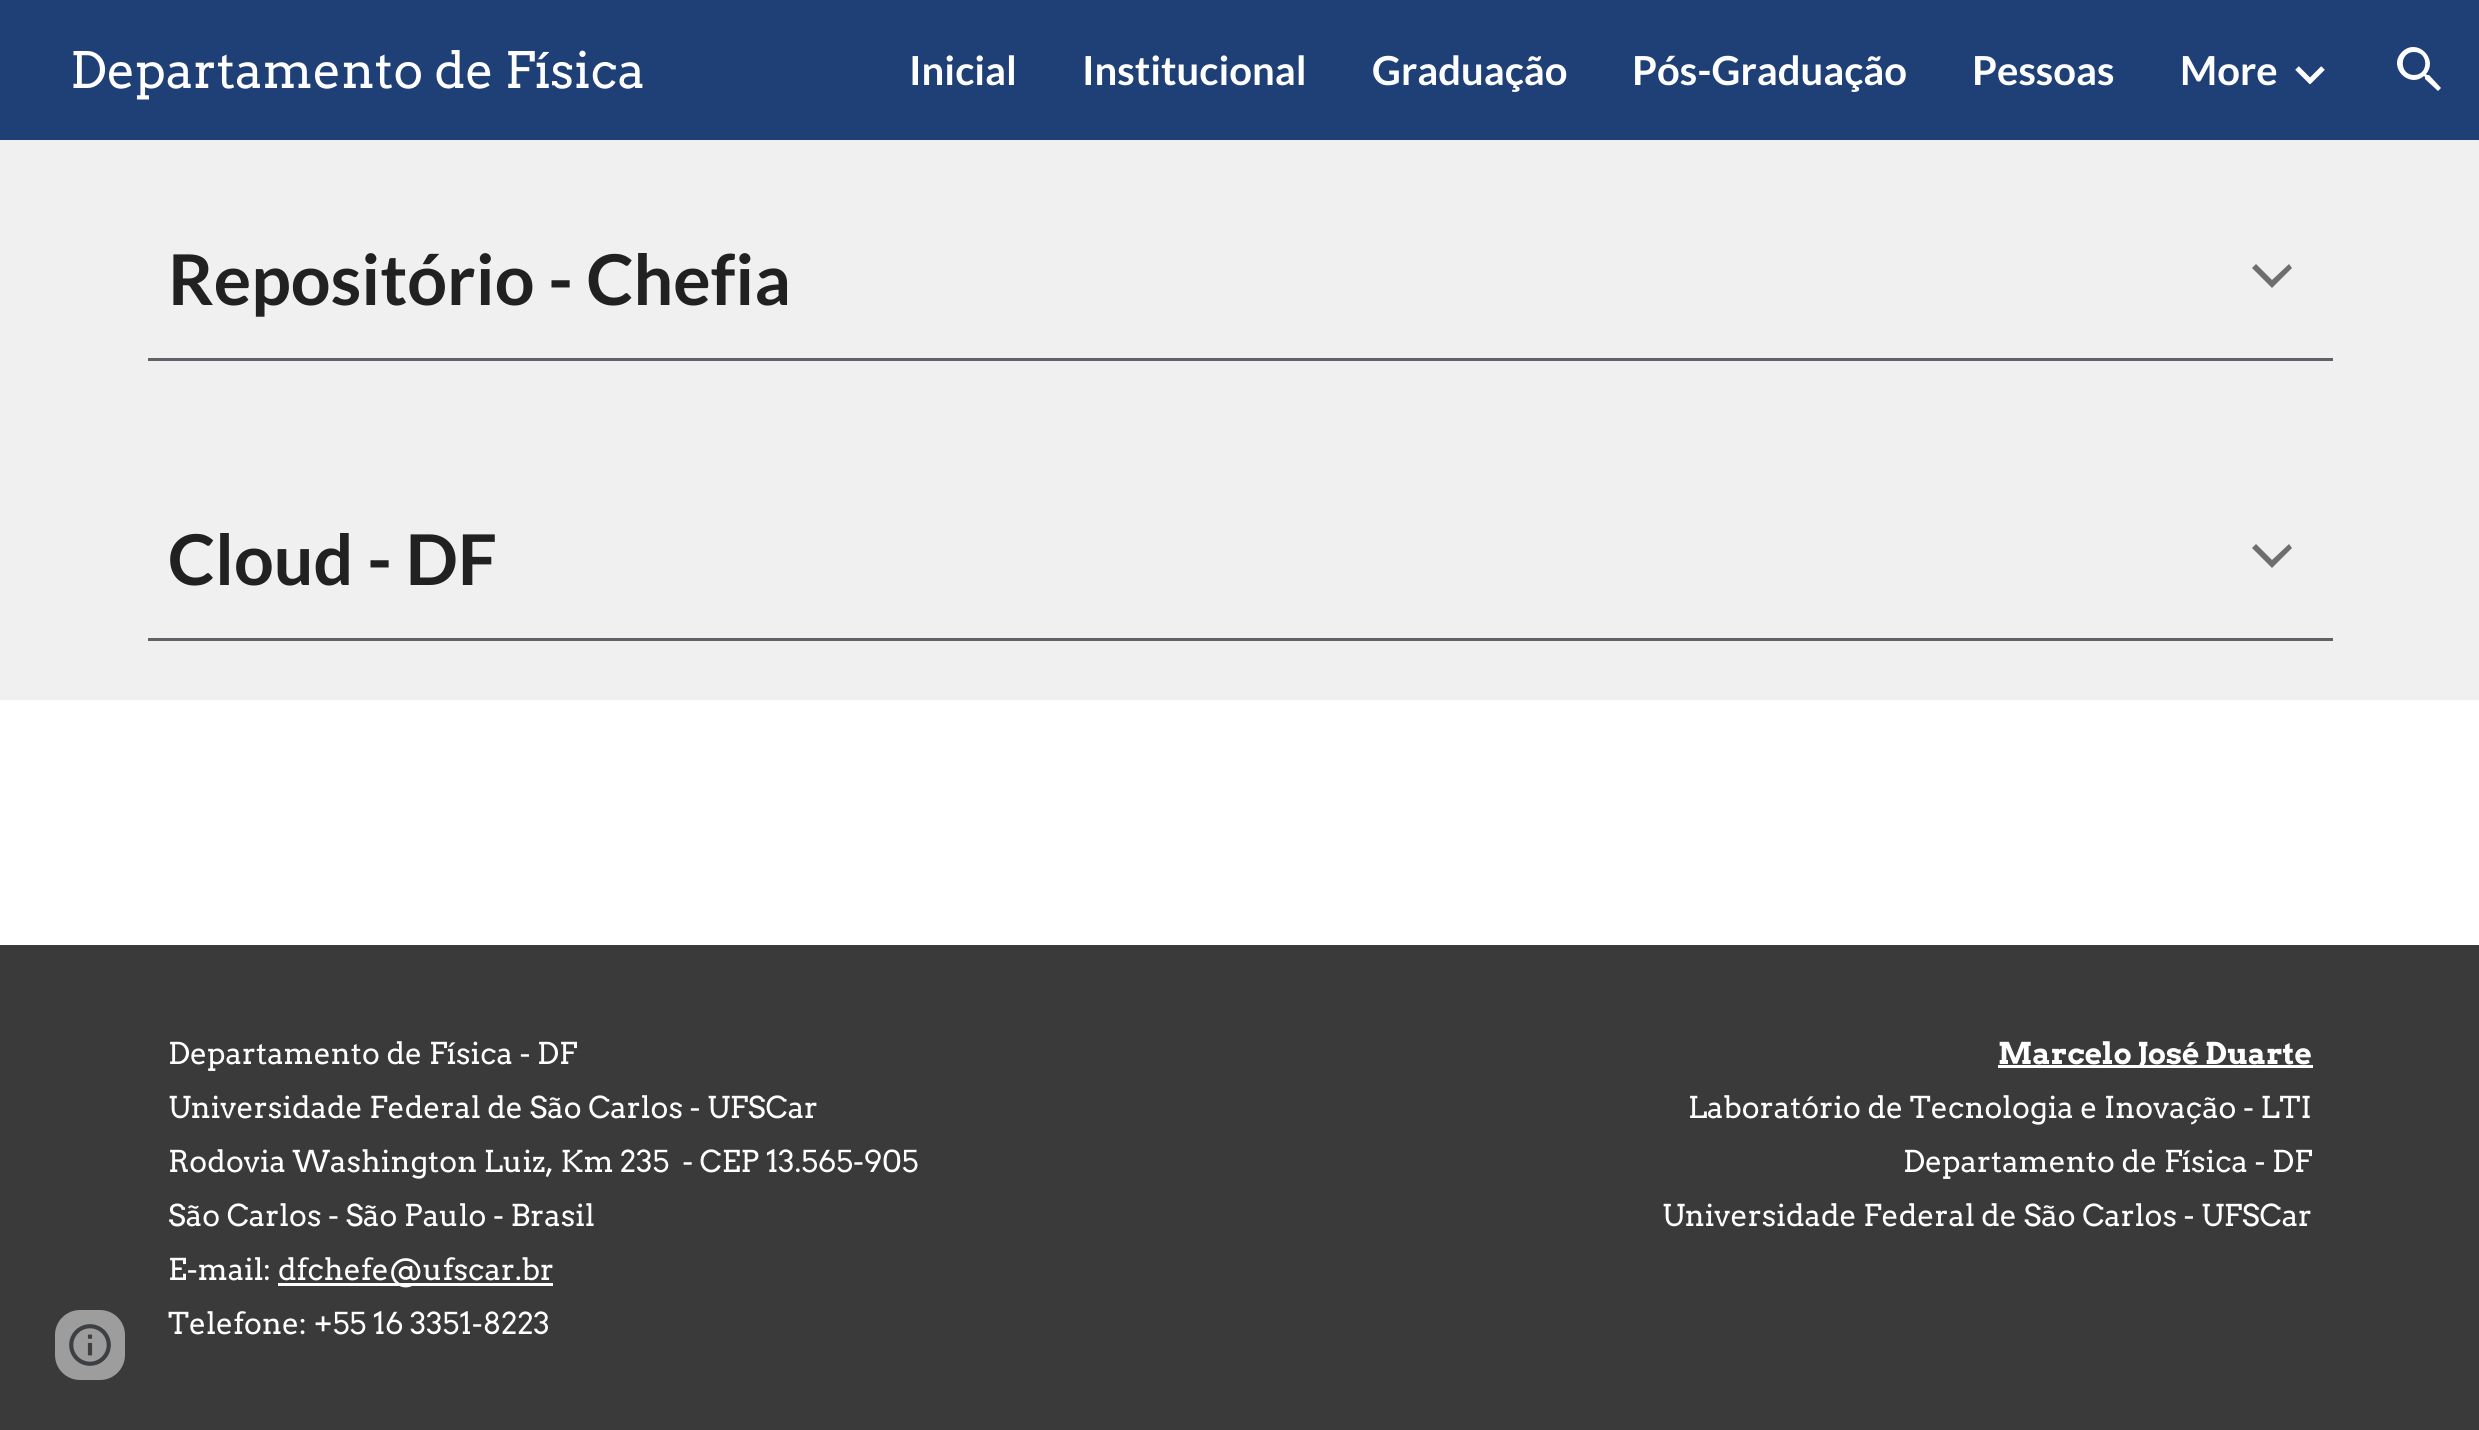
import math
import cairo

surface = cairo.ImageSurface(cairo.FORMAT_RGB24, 2479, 1430)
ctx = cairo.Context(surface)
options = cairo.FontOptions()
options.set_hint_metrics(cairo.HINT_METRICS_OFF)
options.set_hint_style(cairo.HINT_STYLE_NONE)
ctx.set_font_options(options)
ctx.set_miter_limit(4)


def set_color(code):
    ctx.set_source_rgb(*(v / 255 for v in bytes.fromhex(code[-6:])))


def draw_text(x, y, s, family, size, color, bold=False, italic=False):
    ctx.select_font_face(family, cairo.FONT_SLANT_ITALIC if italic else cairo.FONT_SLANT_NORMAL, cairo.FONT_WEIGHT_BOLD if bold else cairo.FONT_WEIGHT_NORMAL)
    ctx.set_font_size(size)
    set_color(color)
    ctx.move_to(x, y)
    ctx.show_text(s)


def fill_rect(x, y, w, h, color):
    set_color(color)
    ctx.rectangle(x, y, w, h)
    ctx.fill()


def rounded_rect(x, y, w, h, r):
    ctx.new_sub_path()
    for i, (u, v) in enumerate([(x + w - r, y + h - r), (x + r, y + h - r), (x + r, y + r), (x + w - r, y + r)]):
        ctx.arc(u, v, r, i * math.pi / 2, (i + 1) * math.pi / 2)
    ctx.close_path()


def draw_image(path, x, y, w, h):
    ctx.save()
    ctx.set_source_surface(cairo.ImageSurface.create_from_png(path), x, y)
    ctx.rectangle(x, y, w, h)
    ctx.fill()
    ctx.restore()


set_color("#ffffff")
ctx.paint()
fill_rect(0, 0, 2479, 140, "#1f4077")
draw_text(70, 88, "Departamento de Física", "Arvo", 50, "#ffffff")
draw_text(909, 85, "Inicial", "Lato", 40, "#ffffff", bold=True)
draw_text(1082, 85, "Institucional", "Lato", 40, "#ffffff", bold=True)
draw_text(1372, 85, "Graduação", "Lato", 40, "#ffffff", bold=True)
draw_text(1632, 85, "Pós-Graduação", "Lato", 40, "#ffffff", bold=True)
draw_text(1972, 85, "Pessoas", "Lato", 40, "#ffffff", bold=True)
draw_text(2180, 85, "More", "Lato", 40, "#ffffff", bold=True)
ctx.new_path()
ctx.move_to(2297, 68)
ctx.line_to(2311.5, 82.5)
ctx.move_to(2308.5, 82.5)
ctx.line_to(2323, 68)
ctx.set_line_width(5)
ctx.stroke()
ctx.new_path()
ctx.move_to(2429, 75)
ctx.line_to(2427, 75)
ctx.line_to(2426, 74)
ctx.curve_to(2439, 59, 2417, 37, 2402, 52)
ctx.curve_to(2387, 67, 2409, 89, 2424, 76)
ctx.line_to(2425, 77)
ctx.line_to(2425, 79)
ctx.line_to(2438, 91)
ctx.line_to(2441, 88)
ctx.close_path()
ctx.move_to(2414, 75)
ctx.curve_to(2399, 75, 2399, 52, 2414, 52)
ctx.curve_to(2429, 52, 2429, 75, 2414, 75)
ctx.close_path()
ctx.fill()
fill_rect(0, 140, 2479, 560, "#f0f0f0")
fill_rect(148, 358, 2185, 3, "#5f6368")
draw_text(168, 305, "Repositório - Chefia", "Lato", 70, "#212121", bold=True)
set_color("#6e6e6e")
ctx.new_path()
ctx.move_to(2256, 264)
ctx.line_to(2252, 268)
ctx.line_to(2272, 288)
ctx.line_to(2292, 268)
ctx.line_to(2289, 264)
ctx.line_to(2272, 280)
ctx.fill()
fill_rect(148, 638, 2185, 3, "#5f6368")
draw_text(168, 585, "Cloud - DF", "Lato", 70, "#212121", bold=True)
set_color("#6e6e6e")
ctx.new_path()
ctx.move_to(2256, 544)
ctx.line_to(2252, 548)
ctx.line_to(2272, 568)
ctx.line_to(2292, 548)
ctx.line_to(2289, 544)
ctx.line_to(2272, 560)
ctx.fill()
fill_rect(0, 945, 2479, 485, "#3a3a3a")
draw_text(168, 1064, "Departamento de Física - DF", "Arvo", 30, "#ffffff")
draw_text(168, 1118, "Universidade Federal de São Carlos - UFSCar", "Arvo", 30, "#ffffff")
draw_text(168, 1172, "Rodovia Washington Luiz, Km 235  - CEP 13.565-905", "Arvo", 30, "#ffffff")
draw_text(168, 1226, "São Carlos - São Paulo - Brasil", "Arvo", 30, "#ffffff")
draw_text(168, 1280, "E-mail:", "Arvo", 30, "#ffffff")
fill_rect(278, 1283, 275, 3, "#ffffff")
draw_text(278, 1280, "dfchefe@ufscar.br", "Arvo", 30, "#ffffff")
draw_text(168, 1334, "Telefone: +55 16 3351-8223", "Arvo", 30, "#ffffff")
fill_rect(1998, 1065, 315, 3, "#ffffff")
draw_text(1998, 1064, "Marcelo José Duarte", "Arvo", 30, "#ffffff", bold=True)
draw_text(1688, 1118, "Laboratório de Tecnologia e Inovação - LTI", "Arvo", 30, "#ffffff")
draw_text(1903, 1172, "Departamento de Física - DF", "Arvo", 30, "#ffffff")
draw_text(1662, 1226, "Universidade Federal de São Carlos - UFSCar", "Arvo", 30, "#ffffff")
set_color("#9d9d9d")
rounded_rect(55, 1310, 70, 70, 25)
ctx.fill()
draw_image("assets/img1.png", 69, 1324, 42, 42)
surface.write_to_png("output.png")
